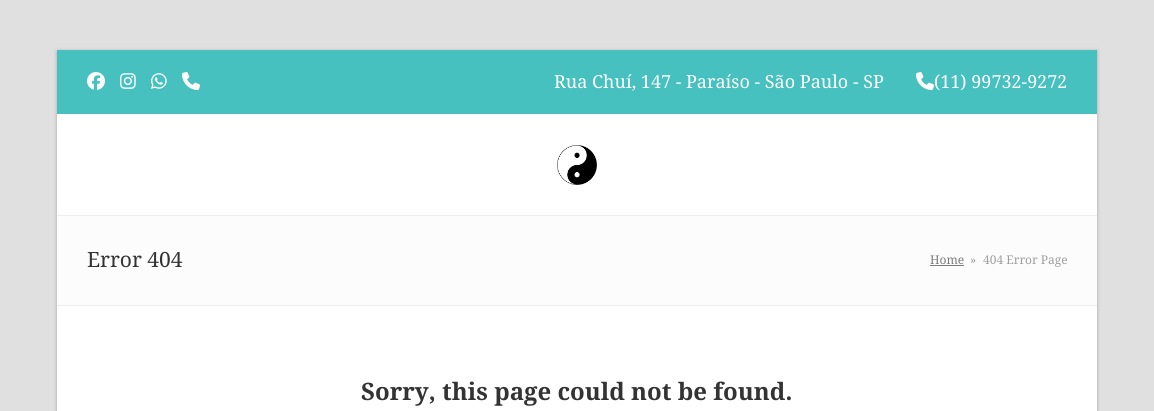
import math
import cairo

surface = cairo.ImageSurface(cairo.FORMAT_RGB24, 1154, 411)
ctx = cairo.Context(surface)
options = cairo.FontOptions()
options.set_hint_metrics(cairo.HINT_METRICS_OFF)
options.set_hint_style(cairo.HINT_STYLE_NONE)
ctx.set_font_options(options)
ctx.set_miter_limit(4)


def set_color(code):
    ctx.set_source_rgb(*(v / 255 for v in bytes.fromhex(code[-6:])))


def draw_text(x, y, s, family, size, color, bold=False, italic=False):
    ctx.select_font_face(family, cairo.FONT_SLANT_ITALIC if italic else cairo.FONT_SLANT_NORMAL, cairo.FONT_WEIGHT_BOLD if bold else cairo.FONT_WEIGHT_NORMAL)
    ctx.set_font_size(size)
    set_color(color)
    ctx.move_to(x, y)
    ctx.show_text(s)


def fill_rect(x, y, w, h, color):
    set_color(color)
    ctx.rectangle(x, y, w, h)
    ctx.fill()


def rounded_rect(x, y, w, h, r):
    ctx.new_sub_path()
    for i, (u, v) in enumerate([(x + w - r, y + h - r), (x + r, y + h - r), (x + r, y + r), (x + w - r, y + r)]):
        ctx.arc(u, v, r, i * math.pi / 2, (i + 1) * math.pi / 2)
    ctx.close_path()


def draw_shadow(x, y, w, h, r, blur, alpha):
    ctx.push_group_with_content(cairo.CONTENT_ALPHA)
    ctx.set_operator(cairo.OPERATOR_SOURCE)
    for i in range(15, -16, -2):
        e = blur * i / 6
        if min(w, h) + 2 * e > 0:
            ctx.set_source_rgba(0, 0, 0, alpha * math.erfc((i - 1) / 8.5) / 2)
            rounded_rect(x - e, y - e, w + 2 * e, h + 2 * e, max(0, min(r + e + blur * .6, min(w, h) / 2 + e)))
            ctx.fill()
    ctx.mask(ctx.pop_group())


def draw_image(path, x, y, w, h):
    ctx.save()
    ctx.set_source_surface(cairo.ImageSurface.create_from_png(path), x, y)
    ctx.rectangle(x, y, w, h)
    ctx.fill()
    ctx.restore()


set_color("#e0e0e0")
ctx.paint()
set_color("#000000")
draw_shadow(57, 51, 1040, 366, 0, 2, 0.25)
fill_rect(57, 114, 1040, 297, "#ffffff")
fill_rect(57, 50, 1040, 64, "#47c0c0")
draw_image("assets/img1.png", 87, 72, 18, 18)
draw_image("assets/img2.png", 120, 73, 16, 16)
draw_image("assets/img3.png", 151, 73, 16, 16)
draw_image("assets/img4.png", 182, 72, 18, 18)
draw_text(554, 88, "Rua Chuí, 147 - Paraíso - São Paulo - SP", "Droid Serif", 18, "#ffffff")
draw_image("assets/img4.png", 916, 72, 18, 18)
draw_text(934, 88, "(11) 99732-9272", "Droid Serif", 18, "#ffffff")
draw_image("assets/img5.png", 557, 145, 40, 40)
fill_rect(57, 216, 1040, 89, "#fcfcfc")
fill_rect(57, 215, 1040, 1, "#eeeeee")
fill_rect(57, 305, 1040, 1, "#eeeeee")
draw_text(87, 267, "Error 404", "Droid Serif", 21, "#333333")
draw_text(930, 264, "Home", "Droid Serif", 12, "#7c7c7c")
fill_rect(930, 265, 34, 1, "#7c7c7c")
draw_text(970, 264, "»", "Droid Serif", 12, "#9e9e9e")
draw_text(983, 264, "404 Error Page", "Droid Serif", 12, "#9e9e9e")
draw_text(361, 400, "Sorry, this page could not be found.", "Droid Serif", 24, "#333333", bold=True)
surface.write_to_png("output.png")
